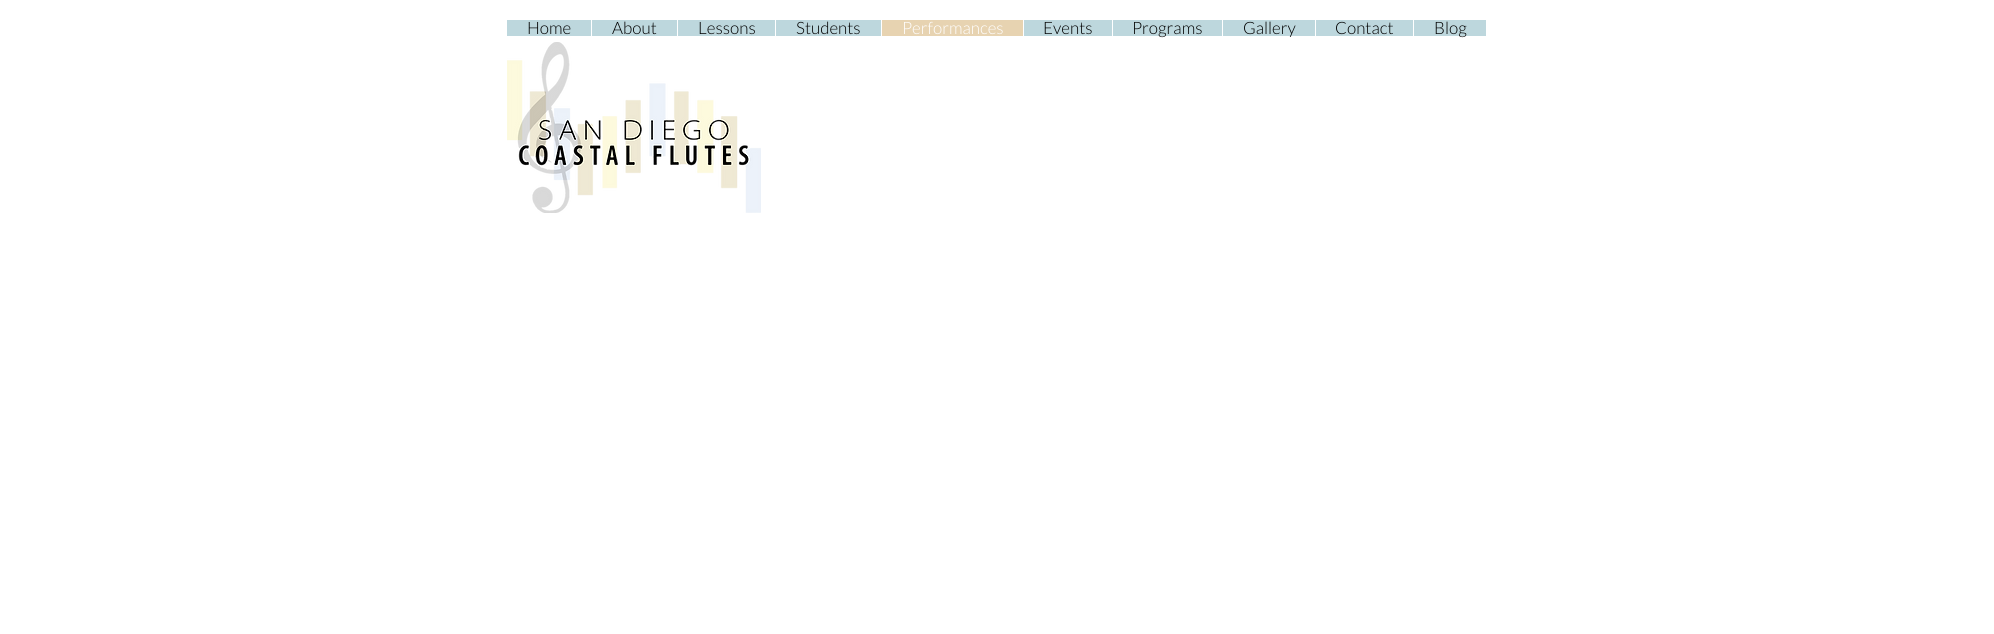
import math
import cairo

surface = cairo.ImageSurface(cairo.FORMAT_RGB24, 1994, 634)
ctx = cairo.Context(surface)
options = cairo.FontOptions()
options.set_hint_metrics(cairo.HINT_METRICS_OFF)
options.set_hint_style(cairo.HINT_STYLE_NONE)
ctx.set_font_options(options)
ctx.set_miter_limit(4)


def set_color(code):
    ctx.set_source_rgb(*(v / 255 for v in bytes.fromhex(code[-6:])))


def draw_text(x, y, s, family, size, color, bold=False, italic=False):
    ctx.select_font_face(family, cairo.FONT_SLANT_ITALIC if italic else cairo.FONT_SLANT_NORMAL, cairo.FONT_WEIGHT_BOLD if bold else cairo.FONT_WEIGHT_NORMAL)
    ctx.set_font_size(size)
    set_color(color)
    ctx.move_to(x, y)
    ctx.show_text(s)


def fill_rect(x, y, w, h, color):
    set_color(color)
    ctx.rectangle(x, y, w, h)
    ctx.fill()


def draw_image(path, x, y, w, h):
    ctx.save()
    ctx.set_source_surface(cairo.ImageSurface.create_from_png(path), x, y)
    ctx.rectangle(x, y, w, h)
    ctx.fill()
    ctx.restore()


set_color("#ffffff")
ctx.paint()
fill_rect(507, 20, 979, 16, "#bdd7dd")
draw_text(527, 34, "Home", "Lato Light", 17, "#000000")
fill_rect(591, 20, 1, 16, "#ffffff")
draw_text(612, 34, "About", "Lato Light", 17, "#000000")
fill_rect(677, 20, 1, 16, "#ffffff")
draw_text(698, 34, "Lessons", "Lato Light", 17, "#000000")
fill_rect(775, 20, 1, 16, "#ffffff")
draw_text(796, 34, "Students", "Lato Light", 17, "#000000")
fill_rect(882, 20, 141, 16, "#e7d3b1")
fill_rect(881, 20, 1, 16, "#ffffff")
draw_text(902, 34, "Performances", "Lato Light", 17, "#ffffff")
fill_rect(1023, 20, 1, 16, "#ffffff")
draw_text(1043, 34, "Events", "Lato Light", 17, "#000000")
fill_rect(1112, 20, 1, 16, "#ffffff")
draw_text(1132, 34, "Programs", "Lato Light", 17, "#000000")
fill_rect(1222, 20, 1, 16, "#ffffff")
draw_text(1243, 34, "Gallery", "Lato Light", 17, "#000000")
fill_rect(1315, 20, 1, 16, "#ffffff")
draw_text(1335, 34, "Contact", "Lato Light", 17, "#000000")
fill_rect(1413, 20, 1, 16, "#ffffff")
draw_text(1434, 34, "Blog", "Lato Light", 17, "#000000")
draw_image("assets/img1.png", 507, 42, 254, 171)
surface.write_to_png("output.png")
